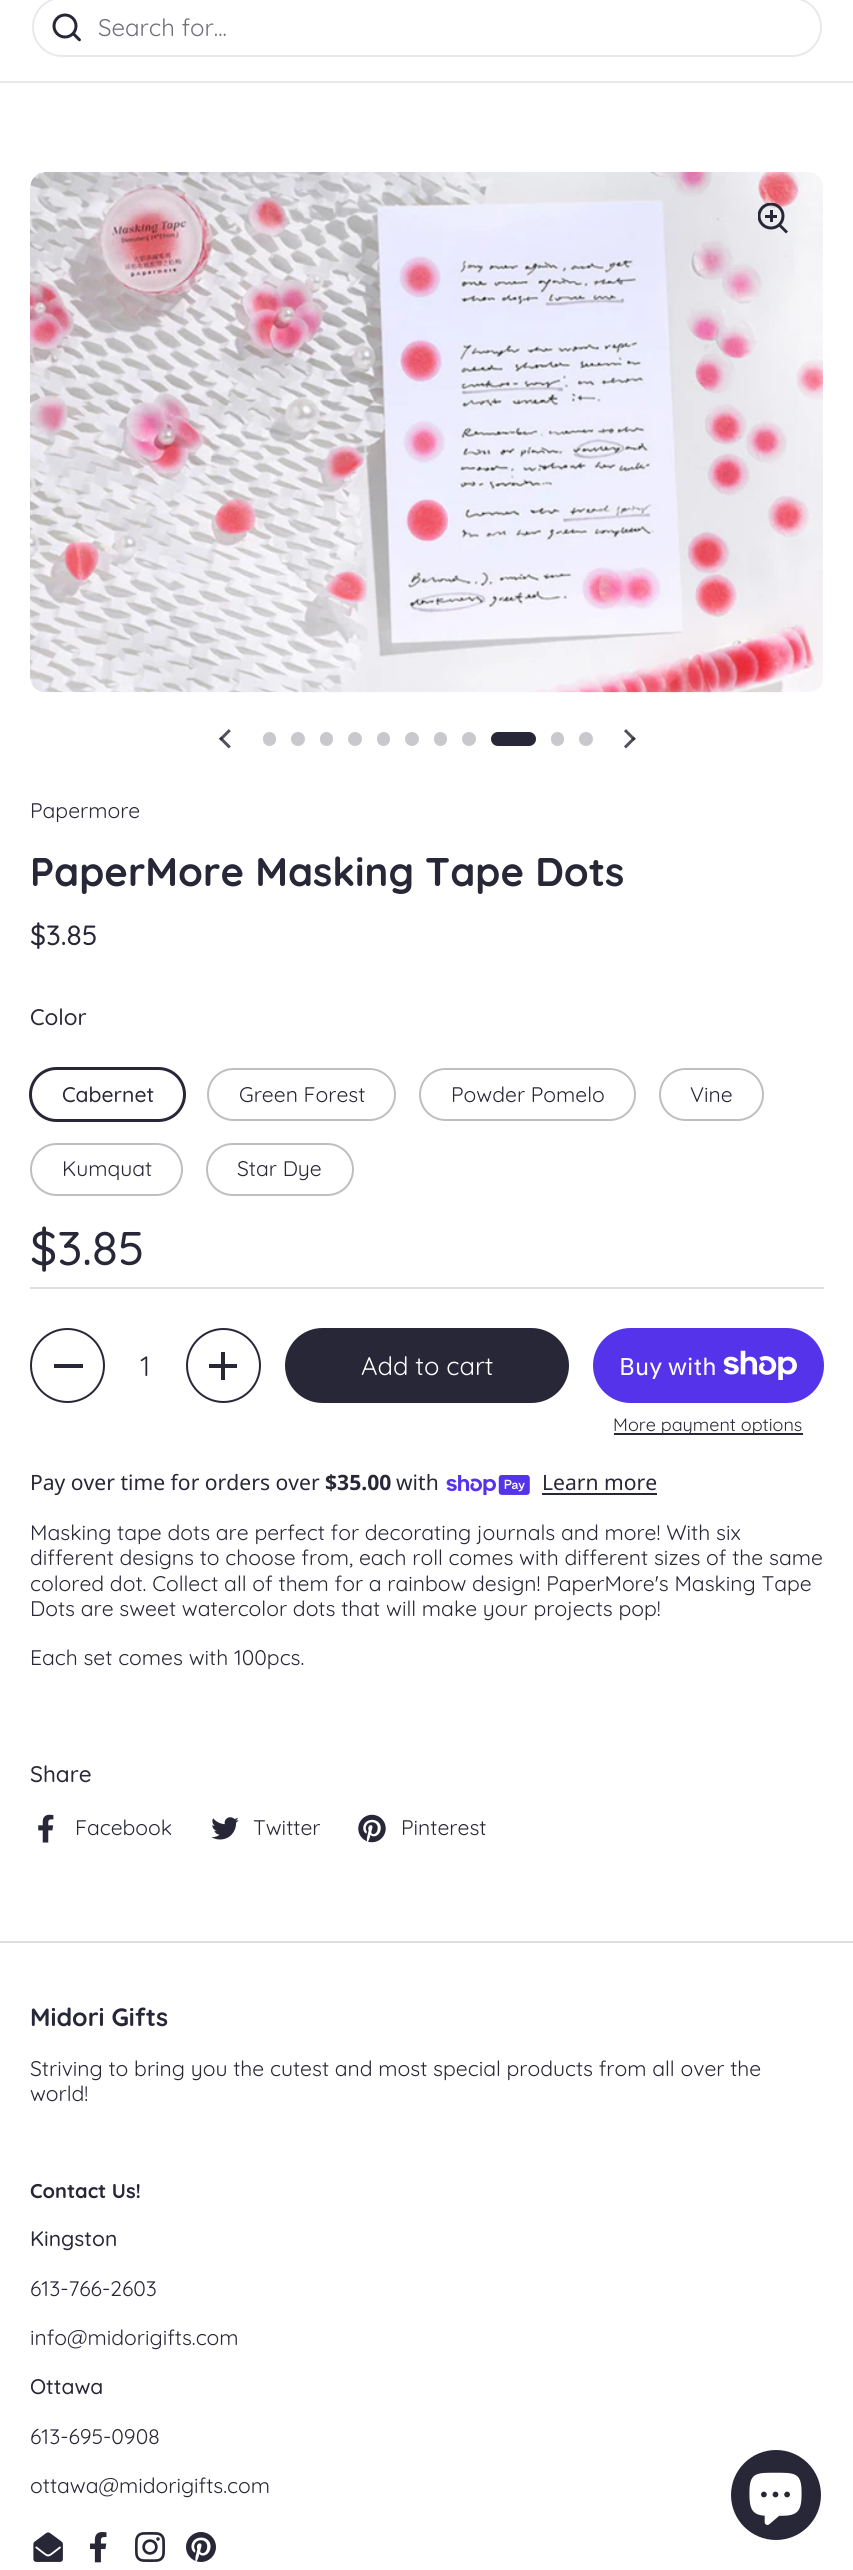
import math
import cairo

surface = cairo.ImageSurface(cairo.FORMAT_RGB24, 853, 2570)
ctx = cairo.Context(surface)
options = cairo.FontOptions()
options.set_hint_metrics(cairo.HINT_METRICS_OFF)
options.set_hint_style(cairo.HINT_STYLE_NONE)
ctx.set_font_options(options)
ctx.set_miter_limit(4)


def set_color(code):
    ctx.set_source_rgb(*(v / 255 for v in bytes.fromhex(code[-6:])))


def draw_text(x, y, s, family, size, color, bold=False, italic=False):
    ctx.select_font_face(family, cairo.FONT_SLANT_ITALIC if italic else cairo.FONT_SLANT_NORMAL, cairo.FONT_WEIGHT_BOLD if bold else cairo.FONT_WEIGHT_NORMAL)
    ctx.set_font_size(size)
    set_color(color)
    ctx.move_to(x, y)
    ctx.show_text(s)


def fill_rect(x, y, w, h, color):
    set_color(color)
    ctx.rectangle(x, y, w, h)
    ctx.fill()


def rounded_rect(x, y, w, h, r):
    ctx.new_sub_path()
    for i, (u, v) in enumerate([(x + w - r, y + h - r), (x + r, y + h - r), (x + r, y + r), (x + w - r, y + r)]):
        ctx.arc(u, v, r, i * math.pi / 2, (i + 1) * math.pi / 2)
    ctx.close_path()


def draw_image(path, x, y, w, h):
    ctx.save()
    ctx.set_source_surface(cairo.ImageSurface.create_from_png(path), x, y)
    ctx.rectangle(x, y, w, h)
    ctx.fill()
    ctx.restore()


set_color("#ffffff")
ctx.paint()
fill_rect(0, 81, 853, 2, "#e9e9eb")
rounded_rect(33, -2, 788, 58, 29)
ctx.stroke()
draw_image("assets/img1.png", 52, 13, 29, 29)
draw_text(98, 36, "Search for...", "Quicksand", 24, "#70707b")
draw_image("assets/img2.png", 30, 172, 793, 521)
ctx.save()
ctx.rectangle(758, 203, 31, 31)
ctx.clip()
ctx.arc(771, 216, 12, 0, 2 * math.pi)
set_color("#272737")
ctx.set_line_width(3)
ctx.stroke()
ctx.restore()
fill_rect(770, 210, 3, 12, "#272737")
fill_rect(765, 215, 12, 3, "#272737")
ctx.new_path()
ctx.move_to(779, 226.5)
ctx.line_to(781, 224.5)
ctx.line_to(788, 231.5)
ctx.line_to(786, 233.5)
ctx.close_path()
ctx.fill()
draw_image("assets/img3.png", 219, 729, 12, 20)
set_color("#c9c9cd")
rounded_rect(263, 732, 13, 14, 6.5)
ctx.fill()
ctx.arc(298, 739, 7, 0, 2 * math.pi)
ctx.fill()
rounded_rect(320, 732, 13, 14, 6.5)
ctx.fill()
ctx.arc(355, 739, 7, 0, 2 * math.pi)
ctx.fill()
rounded_rect(377, 732, 13, 14, 6.5)
ctx.fill()
ctx.arc(412, 739, 7, 0, 2 * math.pi)
ctx.fill()
rounded_rect(434, 732, 13, 14, 6.5)
ctx.fill()
ctx.arc(469, 739, 7, 0, 2 * math.pi)
ctx.fill()
set_color("#272737")
rounded_rect(491, 732, 45, 14, 7)
ctx.fill()
set_color("#c9c9cd")
rounded_rect(551, 732, 13, 14, 6.5)
ctx.fill()
ctx.arc(586, 739, 7, 0, 2 * math.pi)
ctx.fill()
draw_image("assets/img4.png", 624, 729, 12, 20)
draw_text(30, 818, "Papermore", "Quicksand", 21.1, "#272737")
draw_text(30, 886, "PaperMore Masking Tape Dots", "Quicksand", 40, "#272737", bold=True)
draw_text(30, 945, "$3.85", "Quicksand Medium", 28, "#272737")
draw_text(30, 1025, "Color", "Quicksand Medium", 22.5, "#272737")
rounded_rect(30, 1068, 155, 53, 26.5)
ctx.stroke()
rounded_rect(31, 1069, 153, 51, 25.5)
ctx.stroke()
draw_text(62, 1102, "Cabernet", "Quicksand Medium", 21.1, "#272737")
rounded_rect(208, 1069, 187, 51, 25.5)
set_color("#bebec3")
ctx.stroke()
draw_text(239, 1102, "Green Forest", "Quicksand", 21.1, "#272737")
rounded_rect(420, 1069, 215, 51, 25.5)
set_color("#bebec3")
ctx.stroke()
draw_text(451, 1102, "Powder Pomelo", "Quicksand", 21.1, "#272737")
rounded_rect(660, 1069, 103, 51, 25.5)
set_color("#bebec3")
ctx.stroke()
draw_text(690, 1102, "Vine", "Quicksand", 21.1, "#272737")
rounded_rect(31, 1144, 151, 51, 25.5)
set_color("#bebec3")
ctx.stroke()
draw_text(62, 1176, "Kumquat", "Quicksand", 21.1, "#272737")
rounded_rect(207, 1144, 146, 51, 25.5)
set_color("#bebec3")
ctx.stroke()
draw_text(237, 1176, "Star Dye", "Quicksand", 21.1, "#272737")
draw_text(30, 1265, "$3.85", "Quicksand Medium", 47.5, "#272737")
fill_rect(30, 1287, 794, 2, "#dfdfe1")
ctx.new_path()
ctx.arc(67.5, 1365.5, 36.5, 0, 2 * math.pi)
set_color("#272737")
ctx.stroke()
fill_rect(54, 1364, 29, 4, "#272737")
draw_text(140, 1376, "1", "Quicksand", 28, "#272737")
ctx.new_path()
ctx.arc(223.5, 1365.5, 36.5, 0, 2 * math.pi)
ctx.stroke()
fill_rect(221, 1352, 4, 28, "#272737")
fill_rect(209, 1364, 28, 4, "#272737")
rounded_rect(286, 1329, 282, 73, 36.5)
ctx.fill_preserve()
ctx.stroke()
draw_text(361, 1375, "Add to cart", "Quicksand", 25.5, "#ffffff")
set_color("#5433eb")
rounded_rect(593, 1328, 231, 75, 37.5)
ctx.fill()
draw_text(619, 1375, "Buy with", "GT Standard", 24, "#ffffff")
draw_image("assets/img5.png", 723, 1350, 74, 30)
fill_rect(614, 1433, 189, 2, "#272737")
draw_text(613, 1431, "More payment options", "Quicksand", 18, "#272737")
draw_text(30, 1490, "Pay over time for orders over", "Noto Sans", 21.1, "#272737")
draw_text(325, 1490, "$35.00", "Noto Sans", 21.1, "#272737", bold=True)
draw_text(396, 1490, "with", "Noto Sans", 21.1, "#272737")
draw_image("assets/img6.png", 446, 1475, 84, 21)
draw_text(542, 1490, "Learn more", "Noto Sans", 21.1, "#272737")
fill_rect(542, 1493, 115, 2, "#272737")
draw_text(30, 1540, "Masking tape dots are perfect for decorating journals and more! With six", "Quicksand", 21.1, "#272737")
draw_text(30, 1565, "different designs to choose from, each roll comes with different sizes of the same", "Quicksand", 21.1, "#272737")
draw_text(30, 1591, "colored dot. Collect all of them for a rainbow design! PaperMore's Masking Tape", "Quicksand", 21.1, "#272737")
draw_text(30, 1616, "Dots are sweet watercolor dots that will make your projects pop!", "Quicksand", 21.1, "#272737")
draw_text(30, 1665, "Each set comes with 100pcs.", "Quicksand", 21.1, "#272737")
draw_text(30, 1782, "Share", "Quicksand Medium", 22.5, "#272737")
draw_image("assets/img7.png", 38, 1814, 16, 29)
draw_text(75, 1835, "Facebook", "Quicksand", 21.1, "#272737")
draw_image("assets/img8.png", 211, 1817, 28, 23)
draw_text(253, 1835, "Twitter", "Quicksand", 21.1, "#272737")
draw_image("assets/img9.png", 358, 1814, 28, 29)
draw_text(401, 1835, "Pinterest", "Quicksand", 21.1, "#272737")
fill_rect(0, 1941, 853, 2, "#dfdfe1")
draw_text(30, 2026, "Midori Gifts", "Quicksand", 25, "#272737", bold=True)
draw_text(30, 2076, "Striving to bring you the cutest and most special products from all over the", "Quicksand", 21.1, "#272737")
draw_text(30, 2101, "world!", "Quicksand", 21.1, "#272737")
draw_text(30, 2198, "Contact Us!", "Quicksand", 20, "#272737", bold=True)
draw_text(30, 2246, "Kingston", "Quicksand Medium", 21.1, "#272737")
draw_text(30, 2296, "613-766-2603", "Quicksand", 21.1, "#272737")
draw_text(30, 2345, "info@midorigifts.com", "Quicksand", 21.1, "#272737")
draw_text(30, 2394, "Ottawa", "Quicksand Medium", 21.1, "#272737")
draw_text(30, 2444, "613-695-0908", "Quicksand", 21.1, "#272737")
draw_text(30, 2493, "ottawa@midorigifts.com", "Quicksand", 21.1, "#272737")
draw_image("assets/img10.png", 33, 2532, 30, 30)
draw_image("assets/img11.png", 90, 2532, 17, 31)
draw_image("assets/img12.png", 135, 2532, 30, 30)
draw_image("assets/img13.png", 186, 2532, 30, 30)
ctx.arc(776, 2495, 45, 0, 2 * math.pi)
ctx.fill()
draw_image("assets/img14.png", 749, 2472, 53, 53)
surface.write_to_png("output.png")
